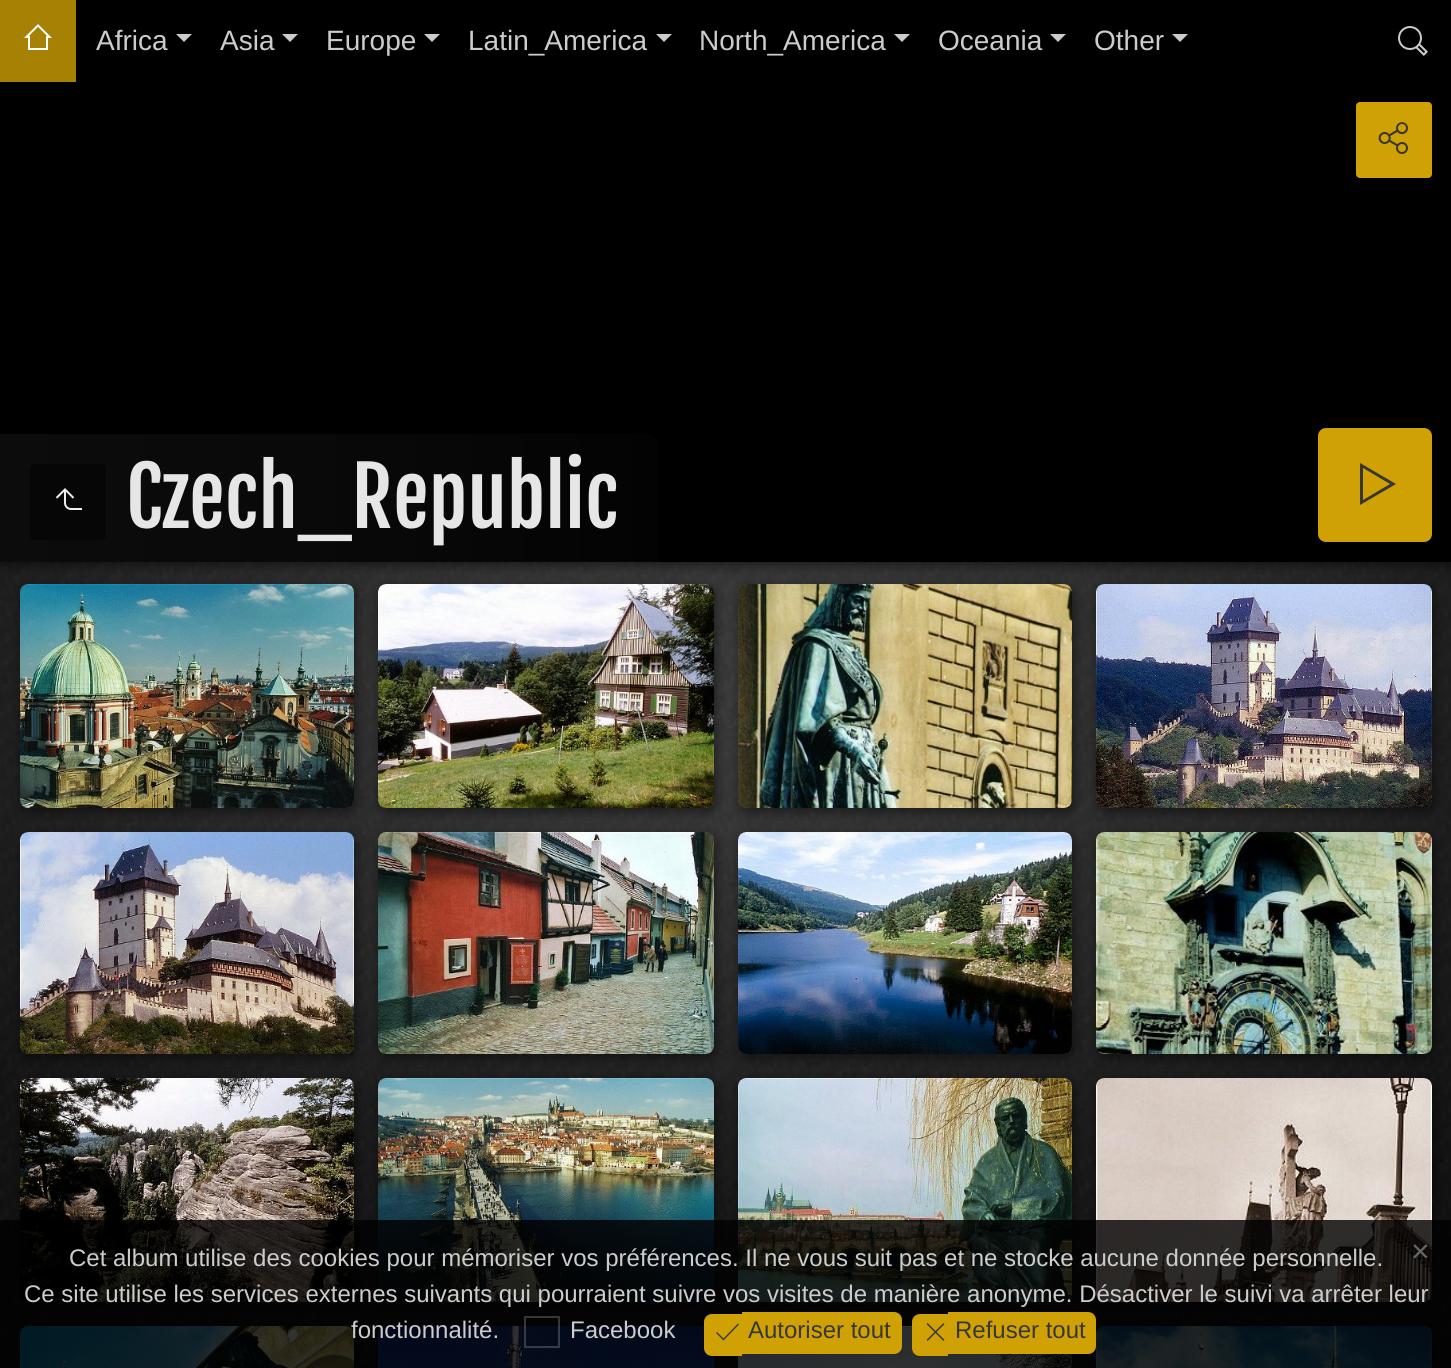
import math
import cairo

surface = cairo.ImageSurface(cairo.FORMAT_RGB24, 1451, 1368)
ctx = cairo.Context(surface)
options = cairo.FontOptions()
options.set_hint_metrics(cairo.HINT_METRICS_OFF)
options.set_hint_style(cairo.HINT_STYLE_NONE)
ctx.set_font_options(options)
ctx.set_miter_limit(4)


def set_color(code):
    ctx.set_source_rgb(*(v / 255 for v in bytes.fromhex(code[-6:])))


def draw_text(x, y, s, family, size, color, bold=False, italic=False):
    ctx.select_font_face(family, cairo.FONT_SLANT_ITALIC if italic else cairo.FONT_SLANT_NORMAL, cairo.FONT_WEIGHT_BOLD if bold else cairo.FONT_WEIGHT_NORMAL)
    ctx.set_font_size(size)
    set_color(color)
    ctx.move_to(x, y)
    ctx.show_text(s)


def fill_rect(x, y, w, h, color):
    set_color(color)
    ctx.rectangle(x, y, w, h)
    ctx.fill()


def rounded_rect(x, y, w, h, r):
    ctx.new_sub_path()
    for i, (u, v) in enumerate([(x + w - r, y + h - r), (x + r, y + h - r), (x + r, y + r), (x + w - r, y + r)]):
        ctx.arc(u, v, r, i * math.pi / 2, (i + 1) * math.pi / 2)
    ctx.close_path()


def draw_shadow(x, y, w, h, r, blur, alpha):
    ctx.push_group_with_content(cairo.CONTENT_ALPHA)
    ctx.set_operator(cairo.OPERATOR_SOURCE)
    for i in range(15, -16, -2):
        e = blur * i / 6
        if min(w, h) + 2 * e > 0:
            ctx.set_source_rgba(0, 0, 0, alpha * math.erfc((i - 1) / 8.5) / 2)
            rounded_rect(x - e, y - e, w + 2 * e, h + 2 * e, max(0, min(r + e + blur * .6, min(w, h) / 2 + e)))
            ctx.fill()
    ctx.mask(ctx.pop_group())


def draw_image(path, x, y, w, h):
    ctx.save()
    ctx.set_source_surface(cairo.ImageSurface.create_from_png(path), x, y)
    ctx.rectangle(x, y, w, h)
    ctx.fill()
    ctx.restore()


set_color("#ffffff")
ctx.paint()
draw_image("assets/img1.png", 0, 562, 1451, 806)
fill_rect(76, 0, 1375, 82, "#000000")
set_color("#000000")
draw_shadow(2, 86, 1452, 480, 0, 6, 0.52)
fill_rect(0, 0, 76, 82, "#a68104")
draw_image("assets/img2.png", 24, 24, 28, 26)
draw_text(96, 50, "Africa", "Liberation Sans", 28, "#cccccc")
ctx.new_path()
ctx.move_to(176, 34)
ctx.line_to(192, 34)
ctx.line_to(184, 42)
ctx.close_path()
ctx.fill()
draw_text(220, 50, "Asia", "Liberation Sans", 28, "#cccccc")
ctx.new_path()
ctx.move_to(282, 34)
ctx.line_to(298, 34)
ctx.line_to(290, 42)
ctx.close_path()
ctx.fill()
draw_text(326, 50, "Europe", "Liberation Sans", 28, "#cccccc")
ctx.new_path()
ctx.move_to(424, 34)
ctx.line_to(440, 34)
ctx.line_to(432, 42)
ctx.close_path()
ctx.fill()
draw_text(468, 50, "Latin_America", "Liberation Sans", 28, "#cccccc")
ctx.new_path()
ctx.move_to(656, 34)
ctx.line_to(672, 34)
ctx.line_to(664, 42)
ctx.close_path()
ctx.fill()
draw_text(699, 50, "North_America", "Liberation Sans", 28, "#cccccc")
ctx.new_path()
ctx.move_to(894, 34)
ctx.line_to(910, 34)
ctx.line_to(902, 42)
ctx.close_path()
ctx.fill()
draw_text(938, 50, "Oceania", "Liberation Sans", 28, "#cccccc")
ctx.new_path()
ctx.move_to(1050, 34)
ctx.line_to(1066, 34)
ctx.line_to(1058, 42)
ctx.close_path()
ctx.fill()
draw_text(1094, 50, "Other", "Liberation Sans", 28, "#cccccc")
ctx.new_path()
ctx.move_to(1172, 34)
ctx.line_to(1188, 34)
ctx.line_to(1180, 42)
ctx.close_path()
ctx.fill()
draw_image("assets/img3.png", 1398, 26, 30, 30)
fill_rect(0, 82, 1451, 480, "#000000")
gradient = cairo.LinearGradient(0, 498, 658, 498)
gradient.add_color_stop_rgba(0, 0.047, 0.047, 0.047, 1)
gradient.add_color_stop_rgba(0.6, 0.031, 0.031, 0.031, 1)
gradient.add_color_stop_rgba(1, 0.012, 0.012, 0.012, 1)
ctx.set_source(gradient)
ctx.new_path()
ctx.move_to(0, 434)
ctx.line_to(646, 434)
ctx.curve_to(652.5, 434, 658, 439.5, 658, 446)
ctx.line_to(658, 562)
ctx.line_to(0, 562)
ctx.close_path()
ctx.fill()
set_color("#060606")
rounded_rect(30, 464, 76, 76, 4)
ctx.fill()
draw_image("assets/img4.png", 55, 488, 27, 22)
draw_text(126, 528, "Czech_Republic", "Fjalla One", 80, "#e6e6e6")
set_color("#d0a105")
rounded_rect(1356, 102, 76, 76, 4)
ctx.fill()
draw_image("assets/img5.png", 1378, 122, 30, 32)
rounded_rect(1318, 428, 114, 114, 8)
ctx.fill()
set_color("#373737")
ctx.new_path()
ctx.move_to(1363, 468)
ctx.line_to(1390, 484)
ctx.line_to(1363, 500)
ctx.close_path()
ctx.move_to(1360, 463)
ctx.line_to(1360, 505)
ctx.line_to(1396, 484)
ctx.close_path()
ctx.fill()
set_color("#000000")
draw_shadow(22, 588, 334, 224, 8, 6, 0.52)
ctx.set_source_rgba(0.933, 0.933, 0.933, 0.13)
rounded_rect(20, 584, 334, 224, 8)
ctx.fill()
draw_image("assets/img6.png", 20, 584, 334, 224)
set_color("#000000")
draw_shadow(380, 588, 336, 224, 8, 6, 0.52)
ctx.set_source_rgba(0.933, 0.933, 0.933, 0.13)
rounded_rect(378, 584, 336, 224, 8)
ctx.fill()
draw_image("assets/img7.png", 378, 584, 336, 224)
set_color("#000000")
draw_shadow(740, 588, 334, 224, 8, 6, 0.52)
ctx.set_source_rgba(0.933, 0.933, 0.933, 0.13)
rounded_rect(738, 584, 334, 224, 8)
ctx.fill()
draw_image("assets/img8.png", 738, 584, 334, 224)
set_color("#000000")
draw_shadow(1098, 588, 336, 224, 8, 6, 0.52)
ctx.set_source_rgba(0.933, 0.933, 0.933, 0.13)
rounded_rect(1096, 584, 336, 224, 8)
ctx.fill()
draw_image("assets/img9.png", 1096, 584, 336, 224)
set_color("#000000")
draw_shadow(22, 836, 334, 222, 8, 6, 0.52)
ctx.set_source_rgba(0.933, 0.933, 0.933, 0.13)
rounded_rect(20, 832, 334, 222, 8)
ctx.fill()
draw_image("assets/img10.png", 20, 832, 334, 222)
set_color("#000000")
draw_shadow(380, 836, 336, 222, 8, 6, 0.52)
ctx.set_source_rgba(0.933, 0.933, 0.933, 0.13)
rounded_rect(378, 832, 336, 222, 8)
ctx.fill()
draw_image("assets/img11.png", 378, 832, 336, 222)
set_color("#000000")
draw_shadow(740, 836, 334, 222, 8, 6, 0.52)
ctx.set_source_rgba(0.933, 0.933, 0.933, 0.13)
rounded_rect(738, 832, 334, 222, 8)
ctx.fill()
draw_image("assets/img12.png", 738, 832, 334, 222)
set_color("#000000")
draw_shadow(1098, 836, 336, 222, 8, 6, 0.52)
ctx.set_source_rgba(0.933, 0.933, 0.933, 0.13)
rounded_rect(1096, 832, 336, 222, 8)
ctx.fill()
draw_image("assets/img13.png", 1096, 832, 336, 222)
set_color("#000000")
draw_shadow(22, 1082, 334, 224, 8, 6, 0.52)
ctx.set_source_rgba(0.933, 0.933, 0.933, 0.13)
rounded_rect(20, 1078, 334, 224, 8)
ctx.fill()
draw_image("assets/img14.png", 20, 1078, 334, 224)
set_color("#000000")
draw_shadow(380, 1082, 336, 224, 8, 6, 0.52)
ctx.set_source_rgba(0.933, 0.933, 0.933, 0.13)
rounded_rect(378, 1078, 336, 224, 8)
ctx.fill()
draw_image("assets/img15.png", 378, 1078, 336, 224)
set_color("#000000")
draw_shadow(740, 1082, 334, 224, 8, 6, 0.52)
ctx.set_source_rgba(0.933, 0.933, 0.933, 0.13)
rounded_rect(738, 1078, 334, 224, 8)
ctx.fill()
draw_image("assets/img16.png", 738, 1078, 334, 224)
set_color("#000000")
draw_shadow(1098, 1082, 336, 224, 8, 6, 0.52)
ctx.set_source_rgba(0.933, 0.933, 0.933, 0.13)
rounded_rect(1096, 1078, 336, 224, 8)
ctx.fill()
draw_image("assets/img17.png", 1096, 1078, 336, 224)
set_color("#000000")
draw_shadow(22, 1330, 334, 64, 8, 6, 0.52)
ctx.set_source_rgba(0.933, 0.933, 0.933, 0.13)
rounded_rect(20, 1326, 334, 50, 8)
ctx.fill()
draw_image("assets/img18.png", 20, 1326, 334, 42)
set_color("#000000")
draw_shadow(380, 1330, 336, 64, 8, 6, 0.52)
ctx.set_source_rgba(0.933, 0.933, 0.933, 0.13)
rounded_rect(378, 1326, 336, 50, 8)
ctx.fill()
draw_image("assets/img19.png", 378, 1326, 336, 42)
set_color("#000000")
draw_shadow(740, 1330, 334, 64, 8, 6, 0.52)
draw_image("assets/img20.png", 738, 1326, 334, 42)
draw_shadow(1098, 1330, 336, 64, 8, 6, 0.52)
ctx.set_source_rgba(0.933, 0.933, 0.933, 0.13)
rounded_rect(1096, 1326, 336, 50, 8)
ctx.fill()
draw_image("assets/img21.png", 1096, 1326, 336, 42)
ctx.set_source_rgba(0, 0, 0, 0.8)
ctx.rectangle(0, 1220, 1451, 148)
ctx.fill()
draw_text(69, 1266, "Cet album utilise des cookies pour mémoriser vos préférences. Il ne vous suit pas et ne stocke aucune donnée personnelle.", "Liberation Sans", 24, "#cccccc")
draw_text(1411, 1262, "×", "Liberation Sans", 32, "#666666")
draw_text(24, 1302, "Ce site utilise les services externes suivants qui pourraient suivre vos visites de manière anonyme. Désactiver le suivi va arrêter leur", "Liberation Sans", 24, "#cccccc")
draw_text(351, 1338, "fonctionnalité.", "Liberation Sans", 24, "#cccccc")
ctx.rectangle(525, 1317, 34, 30)
ctx.set_source_rgba(0.8, 0.8, 0.8, 0.25)
ctx.stroke()
draw_text(570, 1338, "Facebook", "Liberation Sans", 24, "#cccccc")
set_color("#d0a105")
ctx.new_path()
ctx.move_to(742, 1312)
ctx.line_to(894, 1312)
ctx.curve_to(898.5, 1312, 902, 1315.5, 902, 1320)
ctx.line_to(902, 1346)
ctx.curve_to(902, 1350.5, 898.5, 1354, 894, 1354)
ctx.line_to(742, 1354)
ctx.close_path()
ctx.fill()
draw_text(748, 1338, "Autoriser tout", "Liberation Sans", 24, "#373737")
set_color("#d0a105")
ctx.new_path()
ctx.move_to(712, 1314)
ctx.line_to(742, 1314)
ctx.line_to(742, 1356)
ctx.line_to(712, 1356)
ctx.curve_to(707.5, 1356, 704, 1352.5, 704, 1348)
ctx.line_to(704, 1322)
ctx.curve_to(704, 1317.5, 707.5, 1314, 712, 1314)
ctx.close_path()
ctx.fill()
set_color("#373737")
ctx.new_path()
ctx.move_to(738, 1323.5)
ctx.line_to(723.5, 1338.5)
ctx.line_to(717, 1332)
ctx.line_to(716, 1333)
ctx.line_to(723.5, 1340.5)
ctx.line_to(739, 1324.5)
ctx.close_path()
ctx.fill()
set_color("#d0a105")
ctx.new_path()
ctx.move_to(920, 1314)
ctx.line_to(948, 1314)
ctx.line_to(948, 1356)
ctx.line_to(920, 1356)
ctx.curve_to(915.5, 1356, 912, 1352.5, 912, 1348)
ctx.line_to(912, 1322)
ctx.curve_to(912, 1317.5, 915.5, 1314, 920, 1314)
ctx.close_path()
ctx.fill()
draw_image("assets/img22.png", 926, 1323, 19, 18)
ctx.new_path()
ctx.move_to(948, 1312)
ctx.line_to(1088, 1312)
ctx.curve_to(1092.5, 1312, 1096, 1315.5, 1096, 1320)
ctx.line_to(1096, 1346)
ctx.curve_to(1096, 1350.5, 1092.5, 1354, 1088, 1354)
ctx.line_to(948, 1354)
ctx.close_path()
ctx.fill()
draw_text(955, 1338, "Refuser tout", "Liberation Sans", 24, "#373737")
surface.write_to_png("output.png")
